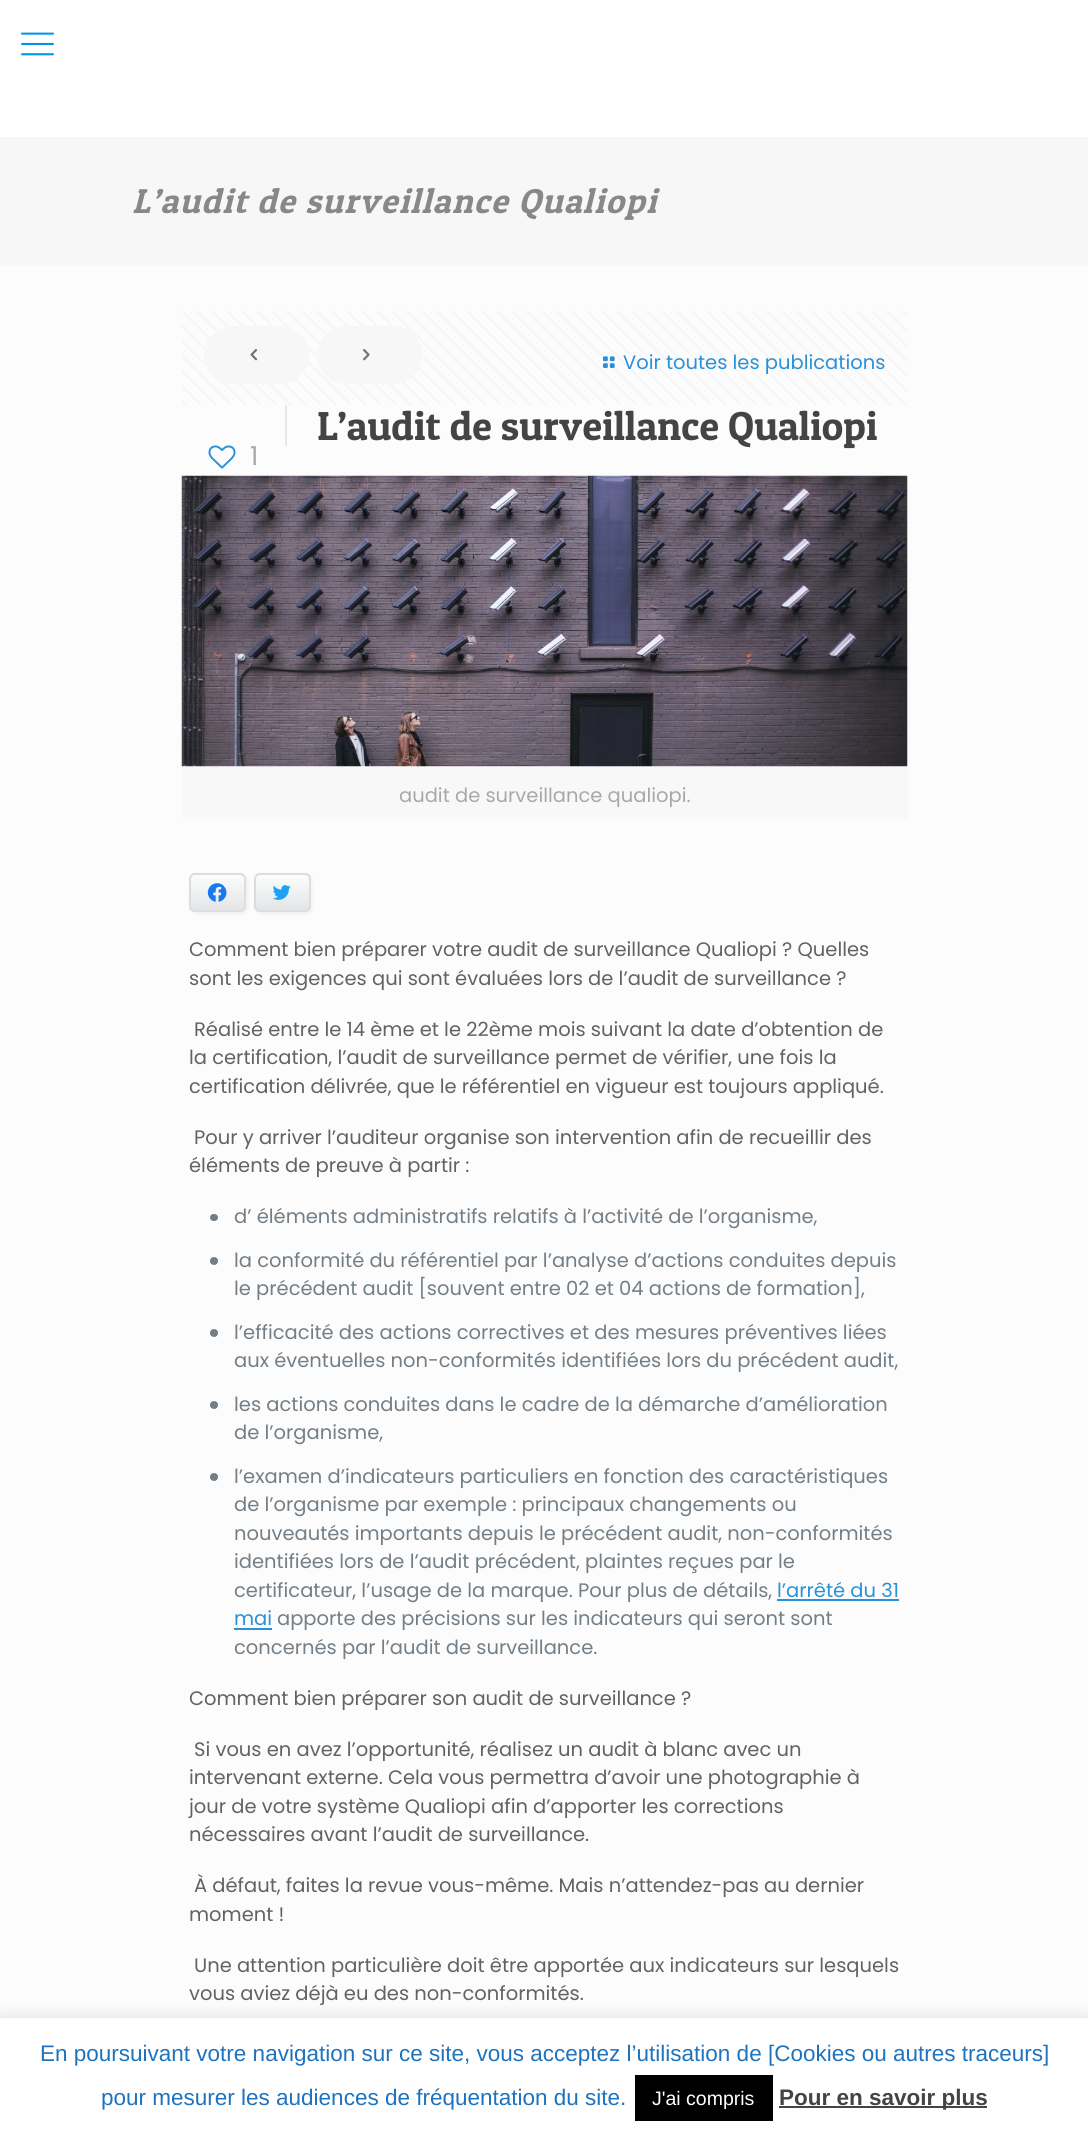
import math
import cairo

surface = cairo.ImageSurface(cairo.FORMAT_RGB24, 1088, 2138)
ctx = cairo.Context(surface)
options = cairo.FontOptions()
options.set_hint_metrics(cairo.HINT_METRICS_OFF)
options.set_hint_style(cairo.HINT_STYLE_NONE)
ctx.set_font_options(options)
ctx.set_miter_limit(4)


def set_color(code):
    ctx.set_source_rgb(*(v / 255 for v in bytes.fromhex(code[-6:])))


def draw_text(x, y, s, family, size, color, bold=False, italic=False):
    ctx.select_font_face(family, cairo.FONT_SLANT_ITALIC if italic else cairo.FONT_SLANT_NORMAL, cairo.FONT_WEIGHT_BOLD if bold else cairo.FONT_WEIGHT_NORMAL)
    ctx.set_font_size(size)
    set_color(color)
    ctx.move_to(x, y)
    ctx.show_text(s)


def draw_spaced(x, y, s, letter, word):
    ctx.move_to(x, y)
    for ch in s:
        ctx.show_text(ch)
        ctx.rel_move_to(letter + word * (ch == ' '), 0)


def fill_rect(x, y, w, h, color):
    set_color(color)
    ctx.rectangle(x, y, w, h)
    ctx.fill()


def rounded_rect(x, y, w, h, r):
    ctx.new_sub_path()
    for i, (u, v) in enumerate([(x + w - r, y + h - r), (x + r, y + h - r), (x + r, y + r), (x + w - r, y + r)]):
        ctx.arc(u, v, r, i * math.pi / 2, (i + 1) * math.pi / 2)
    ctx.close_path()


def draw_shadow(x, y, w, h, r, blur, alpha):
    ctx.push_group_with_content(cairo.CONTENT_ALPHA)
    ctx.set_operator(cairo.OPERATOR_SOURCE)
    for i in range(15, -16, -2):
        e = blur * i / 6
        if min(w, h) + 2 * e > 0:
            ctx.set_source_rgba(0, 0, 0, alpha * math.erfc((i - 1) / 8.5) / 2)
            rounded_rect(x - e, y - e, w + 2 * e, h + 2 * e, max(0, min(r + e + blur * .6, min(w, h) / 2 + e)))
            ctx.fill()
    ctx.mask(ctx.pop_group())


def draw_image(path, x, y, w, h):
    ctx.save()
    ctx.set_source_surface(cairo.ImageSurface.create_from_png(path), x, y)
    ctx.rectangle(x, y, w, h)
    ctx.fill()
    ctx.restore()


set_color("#fcfcfc")
ctx.paint()
fill_rect(0, 0, 1088, 137, "#ffffff")
draw_image("assets/img1.png", 21, 32, 33, 24)
fill_rect(0, 137, 1088, 129, "#f7f7f7")
ctx.select_font_face("Patua One", cairo.FONT_SLANT_ITALIC)
ctx.set_font_size(34.5)
set_color("#888888")
draw_spaced(132, 213, "L’audit de surveillance Qualiopi", 1.5, 0)
draw_image("assets/img2.png", 182, 311, 725, 94)
set_color("#f7f7f7")
rounded_rect(204, 326, 105, 58, 29)
ctx.fill()
draw_image("assets/img3.png", 250, 349, 8, 12)
rounded_rect(317, 326, 105, 58, 29)
ctx.fill()
draw_image("assets/img4.png", 363, 349, 7, 12)
draw_image("assets/img5.png", 603, 356, 12, 12)
draw_text(623, 369, "Voir toutes les publications", "Poppins", 19.5, "#2991d6")
fill_rect(285, 405, 2, 41, "#e8e8e8")
draw_text(317, 440, "L’audit de surveillance Qualiopi", "Patua One", 40.5, "#444444")
draw_image("assets/img6.png", 208, 445, 28, 24)
draw_text(250, 465, "1", "Poppins", 26, "#a8a8a8")
draw_image("assets/img7.png", 181, 475, 727, 292)
fill_rect(182, 767, 726, 52, "#f8f8f8")
draw_text(399, 802, "audit de surveillance qualiopi.", "Poppins", 19.5, "#a8a8a8")
set_color("#000000")
draw_shadow(191, 875, 57, 39, 6, 2, 0.05)
set_color("#e2e4e6")
rounded_rect(189, 873, 57, 39, 6)
ctx.fill()
ctx.save()
rounded_rect(189, 873, 57, 39, 6)
ctx.clip()
gradient = cairo.LinearGradient(218, 875, 218, 911)
gradient.add_color_stop_rgba(0, 1, 1, 1, 0.9)
gradient.add_color_stop_rgba(1, 1, 1, 1, 0)
ctx.set_source(gradient)
ctx.rectangle(189, 875, 57, 35)
ctx.fill()
ctx.restore()
rounded_rect(190, 874, 55, 37, 5)
set_color("#dddddd")
ctx.stroke()
draw_image("assets/img8.png", 207, 883, 20, 19)
set_color("#000000")
draw_shadow(255, 875, 57, 39, 6, 2, 0.05)
set_color("#e2e4e6")
rounded_rect(254, 873, 57, 39, 6)
ctx.fill()
ctx.save()
rounded_rect(254, 873, 57, 39, 6)
ctx.clip()
gradient = cairo.LinearGradient(282, 875, 282, 911)
gradient.add_color_stop_rgba(0, 1, 1, 1, 0.9)
gradient.add_color_stop_rgba(1, 1, 1, 1, 0)
ctx.set_source(gradient)
ctx.rectangle(254, 875, 57, 35)
ctx.fill()
ctx.restore()
rounded_rect(255, 874, 55, 37, 5)
set_color("#dddddd")
ctx.stroke()
draw_image("assets/img9.png", 272, 885, 19, 15)
draw_text(189, 956, "Comment bien préparer votre audit de surveillance Qualiopi ? Quelles", "Poppins", 19.5, "#626262")
draw_text(189, 985, "sont les exigences qui sont évaluées lors de l’audit de surveillance ?", "Poppins", 19.5, "#626262")
draw_text(194, 1036, "Réalisé entre le 14 ème et le 22ème mois suivant la date d’obtention de", "Poppins", 19.5, "#626262")
draw_text(189, 1064, "la certification, l’audit de surveillance permet de vérifier, une fois la", "Poppins", 19.5, "#626262")
draw_text(189, 1093, "certification délivrée, que le référentiel en vigueur est toujours appliqué.", "Poppins", 19.5, "#626262")
draw_text(194, 1144, "Pour y arriver l’auditeur organise son intervention afin de recueillir des", "Poppins", 19.5, "#626262")
draw_text(189, 1172, "éléments de preuve à partir :", "Poppins", 19.5, "#626262")
set_color("#737e86")
rounded_rect(210, 1214, 8, 7, 3.5)
ctx.fill()
draw_text(234, 1223, "d’ éléments administratifs relatifs à l’activité de l’organisme,", "Poppins", 19.5, "#737e86")
ctx.new_path()
ctx.arc(214, 1261, 4, 0, 2 * math.pi)
ctx.fill()
draw_text(234, 1267, "la conformité du référentiel par l’analyse d’actions conduites depuis", "Poppins", 19.5, "#737e86")
draw_text(234, 1295, "le précédent audit [souvent entre 02 et 04 actions de formation],", "Poppins", 19.5, "#737e86")
ctx.new_path()
ctx.arc(214, 1333, 4, 0, 2 * math.pi)
ctx.fill()
draw_text(234, 1339, "l’efficacité des actions correctives et des mesures préventives liées", "Poppins", 19.5, "#737e86")
draw_text(234, 1367, "aux éventuelles non-conformités identifiées lors du précédent audit,", "Poppins", 19.5, "#737e86")
ctx.new_path()
ctx.arc(214, 1405, 4, 0, 2 * math.pi)
ctx.fill()
draw_text(234, 1411, "les actions conduites dans le cadre de la démarche d’amélioration", "Poppins", 19.5, "#737e86")
draw_text(234, 1439, "de l’organisme,", "Poppins", 19.5, "#737e86")
ctx.new_path()
ctx.arc(214, 1477, 4, 0, 2 * math.pi)
ctx.fill()
draw_text(234, 1483, "l’examen d’indicateurs particuliers en fonction des caractéristiques", "Poppins", 19.5, "#737e86")
draw_text(234, 1511, "de l’organisme par exemple : principaux changements ou", "Poppins", 19.5, "#737e86")
draw_text(234, 1540, "nouveautés importants depuis le précédent audit, non-conformités", "Poppins", 19.5, "#737e86")
draw_text(234, 1568, "identifiées lors de l’audit précédent, plaintes reçues par le", "Poppins", 19.5, "#737e86")
draw_text(234, 1597, "certificateur, l’usage de la marque. Pour plus de détails,", "Poppins", 19.5, "#737e86")
fill_rect(777, 1599, 122, 2, "#2991d6")
draw_text(777, 1597, "l’arrêté du 31", "Poppins", 19.5, "#2991d6")
draw_text(234, 1625, "mai", "Poppins", 19.5, "#2991d6")
fill_rect(234, 1628, 38, 2, "#2991d6")
draw_text(277, 1625, "apporte des précisions sur les indicateurs qui seront sont", "Poppins", 19.5, "#737e86")
draw_text(234, 1654, "concernés par l’audit de surveillance.", "Poppins", 19.5, "#737e86")
draw_text(189, 1705, "Comment bien préparer son audit de surveillance ?", "Poppins", 19.5, "#626262")
draw_text(194, 1756, "Si vous en avez l’opportunité, réalisez un audit à blanc avec un", "Poppins", 19.5, "#626262")
draw_text(189, 1784, "intervenant externe. Cela vous permettra d’avoir une photographie à", "Poppins", 19.5, "#626262")
draw_text(189, 1813, "jour de votre système Qualiopi afin d’apporter les corrections", "Poppins", 19.5, "#626262")
draw_text(189, 1841, "nécessaires avant l’audit de surveillance.", "Poppins", 19.5, "#626262")
draw_text(194, 1892, "À défaut, faites la revue vous-même. Mais n’attendez-pas au dernier", "Poppins", 19.5, "#626262")
draw_text(189, 1921, "moment !", "Poppins", 19.5, "#626262")
draw_text(194, 1972, "Une attention particulière doit être apportée aux indicateurs sur lesquels", "Poppins", 19.5, "#626262")
draw_text(189, 2000, "vous aviez déjà eu des non-conformités.", "Poppins", 19.5, "#626262")
set_color("#acabab")
draw_shadow(0, 2016, 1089, 122, 0, 7.5, 0.3)
fill_rect(0, 2018, 1088, 120, "#ffffff")
draw_text(40, 2061, "En poursuivant votre navigation sur ce site, vous acceptez l’utilisation de [Cookies ou autres traceurs]", "Liberation Sans", 22.5, "#1e73be")
draw_text(101, 2105, "pour mesurer les audiences de fréquentation du site.", "Liberation Sans", 22.5, "#1e73be")
fill_rect(635, 2075, 138, 46, "#000000")
draw_text(652, 2105, "J'ai compris", "Liberation Sans", 19.5, "#ffffff")
fill_rect(779, 2106, 208, 2, "#444444")
draw_text(779, 2105, "Pour en savoir plus", "Liberation Sans", 22.5, "#444444", bold=True)
surface.write_to_png("output.png")
